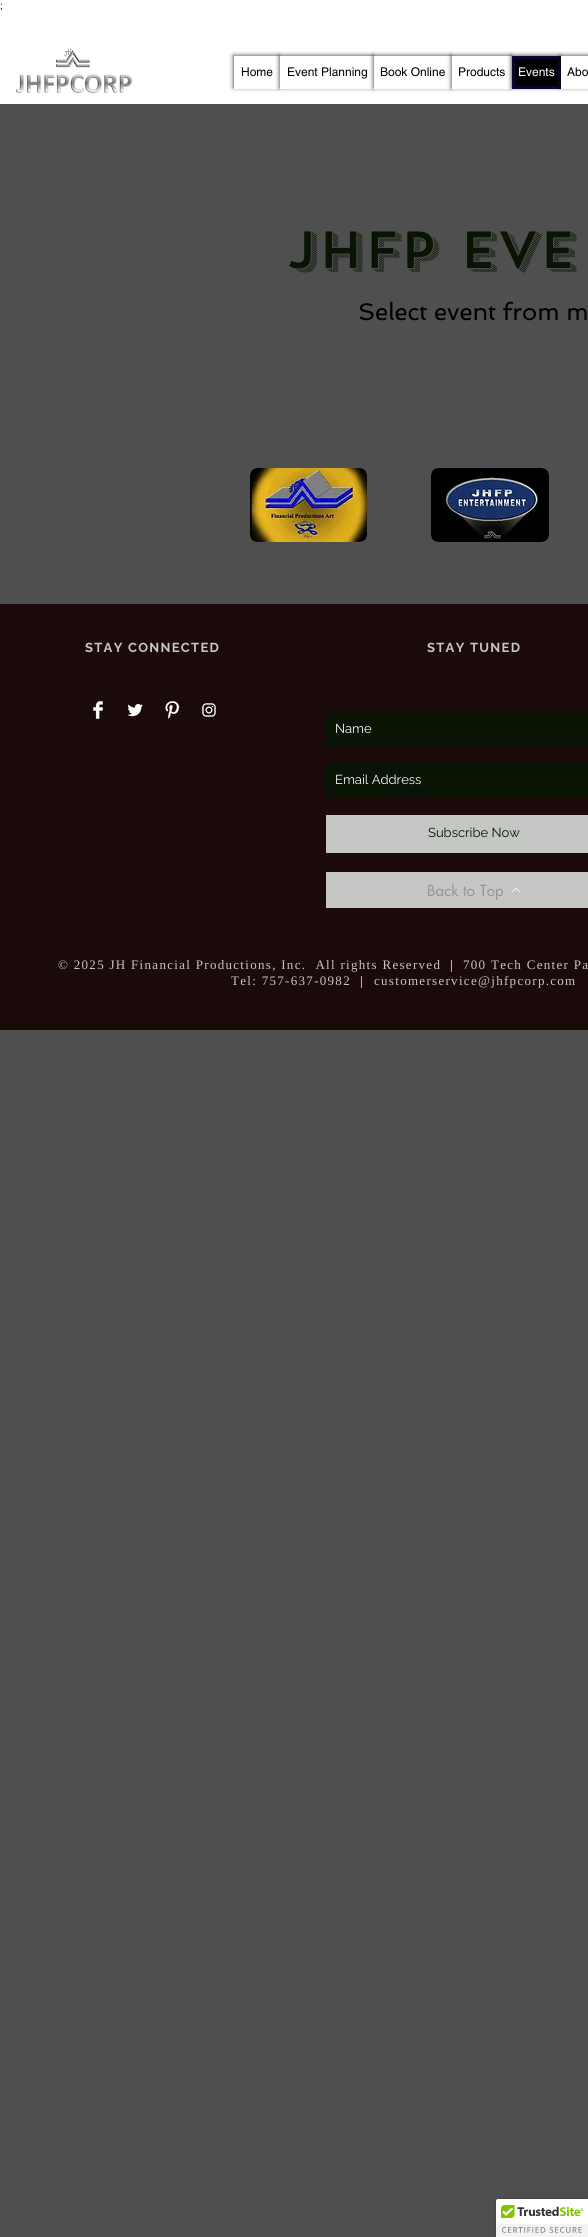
import math
import cairo

surface = cairo.ImageSurface(cairo.FORMAT_RGB24, 588, 2237)
ctx = cairo.Context(surface)
options = cairo.FontOptions()
options.set_hint_metrics(cairo.HINT_METRICS_OFF)
options.set_hint_style(cairo.HINT_STYLE_NONE)
ctx.set_font_options(options)
ctx.set_miter_limit(4)


def set_color(code):
    ctx.set_source_rgb(*(v / 255 for v in bytes.fromhex(code[-6:])))


def draw_text(x, y, s, family, size, color, bold=False, italic=False):
    ctx.select_font_face(family, cairo.FONT_SLANT_ITALIC if italic else cairo.FONT_SLANT_NORMAL, cairo.FONT_WEIGHT_BOLD if bold else cairo.FONT_WEIGHT_NORMAL)
    ctx.set_font_size(size)
    set_color(color)
    ctx.move_to(x, y)
    ctx.show_text(s)


def draw_spaced(x, y, s, letter, word):
    ctx.move_to(x, y)
    for ch in s:
        ctx.show_text(ch)
        ctx.rel_move_to(letter + word * (ch == ' '), 0)


def fill_rect(x, y, w, h, color):
    set_color(color)
    ctx.rectangle(x, y, w, h)
    ctx.fill()


def rounded_rect(x, y, w, h, r):
    ctx.new_sub_path()
    for i, (u, v) in enumerate([(x + w - r, y + h - r), (x + r, y + h - r), (x + r, y + r), (x + w - r, y + r)]):
        ctx.arc(u, v, r, i * math.pi / 2, (i + 1) * math.pi / 2)
    ctx.close_path()


def draw_shadow(x, y, w, h, r, blur, alpha):
    ctx.push_group_with_content(cairo.CONTENT_ALPHA)
    ctx.set_operator(cairo.OPERATOR_SOURCE)
    for i in range(15, -16, -2):
        e = blur * i / 6
        if min(w, h) + 2 * e > 0:
            ctx.set_source_rgba(0, 0, 0, alpha * math.erfc((i - 1) / 8.5) / 2)
            rounded_rect(x - e, y - e, w + 2 * e, h + 2 * e, max(0, min(r + e + blur * .6, min(w, h) / 2 + e)))
            ctx.fill()
    ctx.mask(ctx.pop_group())


def draw_image(path, x, y, w, h):
    ctx.save()
    ctx.set_source_surface(cairo.ImageSurface.create_from_png(path), x, y)
    ctx.rectangle(x, y, w, h)
    ctx.fill()
    ctx.restore()


set_color("#ffffff")
ctx.paint()
draw_text(0, 9, ";", "Liberation Sans", 10, "#000000")
draw_image("assets/img1.png", 16, 48, 117, 45)
ctx.save()
ctx.set_fill_rule(cairo.FILL_RULE_EVEN_ODD)
ctx.new_path()
ctx.move_to(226, 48)
ctx.line_to(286, 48)
ctx.line_to(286, 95)
ctx.line_to(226, 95)
ctx.close_path()
ctx.move_to(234, 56)
ctx.line_to(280, 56)
ctx.line_to(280, 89)
ctx.line_to(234, 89)
ctx.close_path()
ctx.clip()
set_color("#000000")
draw_shadow(233, 55, 46, 33, 0, 2, 0.6)
ctx.restore()
draw_text(241, 76, "Home", "helvetica", 12, "#000000")
ctx.save()
ctx.set_fill_rule(cairo.FILL_RULE_EVEN_ODD)
ctx.new_path()
ctx.move_to(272, 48)
ctx.line_to(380, 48)
ctx.line_to(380, 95)
ctx.line_to(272, 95)
ctx.close_path()
ctx.move_to(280, 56)
ctx.line_to(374, 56)
ctx.line_to(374, 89)
ctx.line_to(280, 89)
ctx.close_path()
ctx.clip()
set_color("#000000")
draw_shadow(279, 55, 94, 33, 0, 2, 0.6)
ctx.restore()
ctx.rectangle(281.5, 57.5, 91, 30)
set_color("#ffffff")
ctx.set_line_width(3)
ctx.stroke()
draw_text(287, 76, "Event Planning", "helvetica", 12, "#000000")
ctx.save()
ctx.set_fill_rule(cairo.FILL_RULE_EVEN_ODD)
ctx.new_path()
ctx.move_to(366, 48)
ctx.line_to(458, 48)
ctx.line_to(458, 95)
ctx.line_to(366, 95)
ctx.close_path()
ctx.move_to(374, 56)
ctx.line_to(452, 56)
ctx.line_to(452, 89)
ctx.line_to(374, 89)
ctx.close_path()
ctx.clip()
set_color("#000000")
draw_shadow(373, 55, 78, 33, 0, 2, 0.6)
ctx.restore()
ctx.rectangle(375.5, 57.5, 75, 30)
set_color("#ffffff")
ctx.stroke()
draw_text(380, 76, "Book Online", "helvetica", 12, "#000000")
ctx.save()
ctx.set_fill_rule(cairo.FILL_RULE_EVEN_ODD)
ctx.new_path()
ctx.move_to(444, 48)
ctx.line_to(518, 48)
ctx.line_to(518, 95)
ctx.line_to(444, 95)
ctx.close_path()
ctx.move_to(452, 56)
ctx.line_to(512, 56)
ctx.line_to(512, 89)
ctx.line_to(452, 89)
ctx.close_path()
ctx.clip()
set_color("#000000")
draw_shadow(451, 55, 60, 33, 0, 2, 0.6)
ctx.restore()
ctx.rectangle(453.5, 57.5, 57, 30)
set_color("#ffffff")
ctx.stroke()
draw_text(458, 76, "Products", "helvetica", 12, "#000000")
set_color("#000000")
draw_shadow(511, 55, 49, 33, 0, 2, 0.6)
set_color("#000000")
ctx.rectangle(513.5, 57.5, 46, 30)
ctx.fill_preserve()
set_color("#0d052c")
ctx.stroke()
draw_text(518, 76, "Events", "helvetica", 12, "#ffffff")
ctx.save()
ctx.set_fill_rule(cairo.FILL_RULE_EVEN_ODD)
ctx.new_path()
ctx.move_to(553, 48)
ctx.line_to(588, 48)
ctx.line_to(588, 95)
ctx.line_to(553, 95)
ctx.close_path()
ctx.move_to(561, 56)
ctx.line_to(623, 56)
ctx.line_to(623, 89)
ctx.line_to(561, 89)
ctx.close_path()
ctx.clip()
set_color("#000000")
draw_shadow(560, 55, 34, 33, 0, 2, 0.6)
ctx.restore()
ctx.rectangle(562.5, 57.5, 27, 30)
ctx.stroke()
draw_text(567, 76, "Abo", "helvetica", 12, "#000000")
fill_rect(0, 104, 588, 2133, "#4f4f4f")
draw_text(287, 268, "JHFP Eve", "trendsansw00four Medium", 52, "#091405")
draw_text(358, 320, "Select event from m", "Spinnaker", 24, "#000000")
draw_image("assets/img2.png", 250, 468, 117, 74)
draw_image("assets/img3.png", 431, 468, 118, 74)
fill_rect(0, 604, 588, 426, "#1b0a0a")
ctx.select_font_face("Raleway", cairo.FONT_SLANT_NORMAL, cairo.FONT_WEIGHT_BOLD)
ctx.set_font_size(13)
set_color("#c5c7c4")
draw_spaced(85, 652, "STAY CONNECTED", 1.3, 0)
draw_spaced(427, 652, "STAY TUNED", 1.3, 0)
draw_image("assets/img4.png", 93, 701, 10, 18)
draw_image("assets/img5.png", 127, 703, 16, 14)
draw_image("assets/img6.png", 165, 701, 15, 18)
draw_image("assets/img7.png", 202, 703, 14, 14)
fill_rect(326, 712, 262, 35, "#091405")
draw_text(335, 733, "Name", "Raleway", 13, "#f6f9f5")
fill_rect(326, 763, 262, 35, "#091405")
draw_text(335, 784, "Email Address", "Raleway", 13, "#f6f9f5")
fill_rect(326, 815, 262, 38, "#c5c7c4")
draw_text(428, 837, "Subscribe Now", "Raleway", 13, "#091405")
fill_rect(326, 872, 262, 36, "#c5c7c4")
draw_text(427, 896, "Back to Top", "futura", 15, "#949593")
draw_image("assets/img8.png", 512, 888, 8, 4)
ctx.select_font_face("Liberation Serif")
ctx.set_font_size(13)
set_color("#c5c7c4")
draw_spaced(58, 969, "© 2025 JH Financial Productions, Inc.  All rights Reserved", 1.3, 0)
ctx.select_font_face("Liberation Serif", cairo.FONT_SLANT_NORMAL, cairo.FONT_WEIGHT_BOLD)
draw_spaced(450, 969, "|", 1.3, 0)
ctx.select_font_face("Liberation Serif")
draw_spaced(463, 969, "700 Tech Center Pa", 1.3, 0)
draw_spaced(231, 985, "Tel: 757-637-0982", 1.3, 0)
ctx.select_font_face("Liberation Serif", cairo.FONT_SLANT_NORMAL, cairo.FONT_WEIGHT_BOLD)
draw_spaced(360, 985, "|", 1.3, 0)
ctx.select_font_face("Liberation Serif")
draw_spaced(374, 985, "customerservice@jhfpcorp.com", 1.3, 0)
set_color("#000000")
draw_shadow(496, 2199, 92, 38, 2, 2.5, 0.2)
set_color("#ffffff")
ctx.new_path()
ctx.move_to(498, 2199)
ctx.line_to(588, 2199)
ctx.line_to(588, 2237)
ctx.line_to(496, 2237)
ctx.line_to(496, 2201)
ctx.curve_to(496, 2200, 497, 2199, 498, 2199)
ctx.close_path()
ctx.fill()
draw_image("assets/img9.png", 496, 2199, 92, 38)
surface.write_to_png("output.png")
